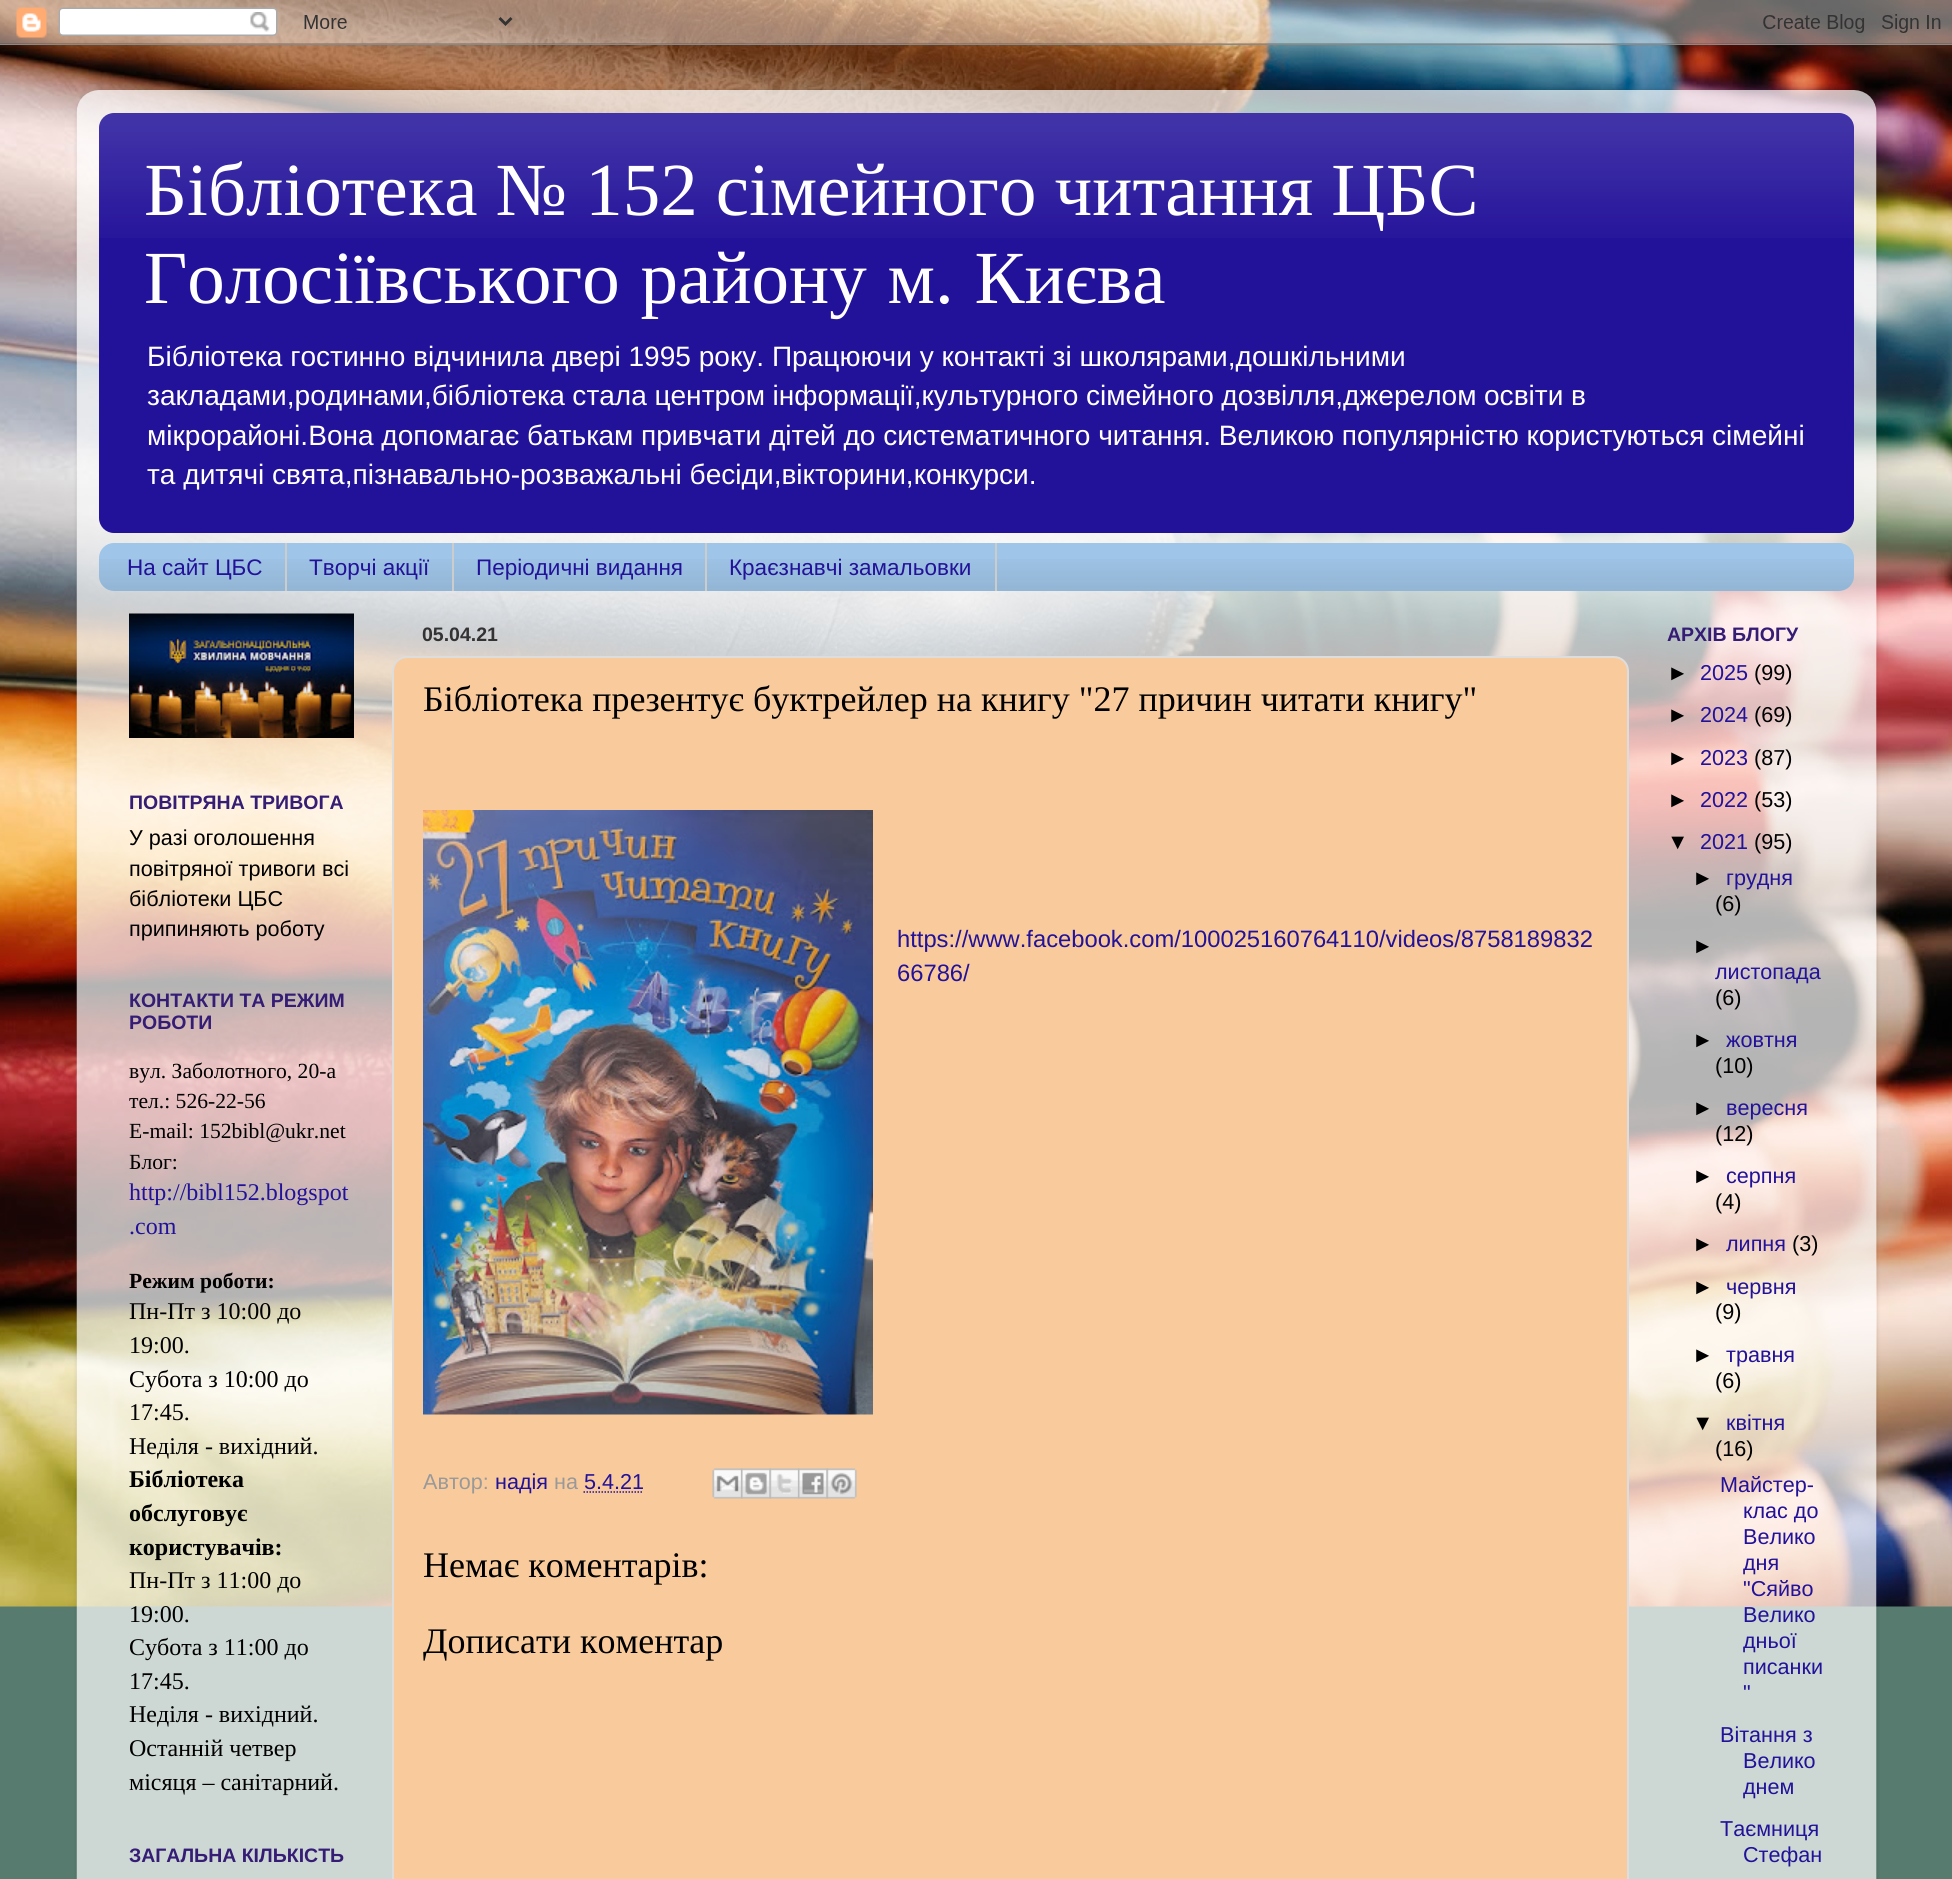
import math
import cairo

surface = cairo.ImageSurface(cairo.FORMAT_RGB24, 1952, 1879)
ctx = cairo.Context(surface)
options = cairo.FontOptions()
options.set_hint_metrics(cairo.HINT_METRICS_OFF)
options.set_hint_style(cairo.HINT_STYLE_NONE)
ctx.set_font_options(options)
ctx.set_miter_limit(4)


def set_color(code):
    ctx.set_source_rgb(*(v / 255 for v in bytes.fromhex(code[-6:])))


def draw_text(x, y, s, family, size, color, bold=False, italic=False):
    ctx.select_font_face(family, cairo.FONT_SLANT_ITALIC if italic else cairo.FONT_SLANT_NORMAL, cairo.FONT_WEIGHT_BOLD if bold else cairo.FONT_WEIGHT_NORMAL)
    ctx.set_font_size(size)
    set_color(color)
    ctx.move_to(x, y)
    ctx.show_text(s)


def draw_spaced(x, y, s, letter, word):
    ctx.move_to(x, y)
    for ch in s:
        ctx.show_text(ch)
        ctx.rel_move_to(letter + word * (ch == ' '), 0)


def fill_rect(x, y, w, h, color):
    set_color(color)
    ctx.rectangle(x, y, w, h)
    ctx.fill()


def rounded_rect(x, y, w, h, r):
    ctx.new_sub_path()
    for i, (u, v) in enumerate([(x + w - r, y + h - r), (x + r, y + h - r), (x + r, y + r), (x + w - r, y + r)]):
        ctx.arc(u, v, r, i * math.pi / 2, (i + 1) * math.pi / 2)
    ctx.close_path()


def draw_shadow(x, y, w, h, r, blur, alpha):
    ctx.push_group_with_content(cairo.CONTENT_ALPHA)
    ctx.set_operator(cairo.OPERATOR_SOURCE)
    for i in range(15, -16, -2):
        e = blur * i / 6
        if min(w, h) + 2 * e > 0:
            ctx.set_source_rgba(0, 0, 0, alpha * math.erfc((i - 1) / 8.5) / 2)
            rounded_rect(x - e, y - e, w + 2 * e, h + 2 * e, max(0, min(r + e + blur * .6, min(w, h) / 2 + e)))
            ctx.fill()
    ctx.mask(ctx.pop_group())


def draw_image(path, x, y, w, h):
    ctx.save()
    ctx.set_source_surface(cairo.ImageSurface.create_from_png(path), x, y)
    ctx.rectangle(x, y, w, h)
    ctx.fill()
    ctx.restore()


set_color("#577b6f")
ctx.paint()
draw_image("assets/img1.png", 0, 0, 1952, 1607)
draw_image("assets/img2.png", 0, 0, 1952, 45)
ctx.save()
ctx.set_fill_rule(cairo.FILL_RULE_EVEN_ODD)
ctx.new_path()
ctx.move_to(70, 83)
ctx.line_to(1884, 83)
ctx.line_to(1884, 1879)
ctx.line_to(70, 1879)
ctx.close_path()
ctx.move_to(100, 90)
ctx.line_to(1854, 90)
ctx.curve_to(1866.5, 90, 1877, 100.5, 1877, 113)
ctx.line_to(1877, 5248)
ctx.curve_to(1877, 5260.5, 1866.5, 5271, 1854, 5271)
ctx.line_to(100, 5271)
ctx.curve_to(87.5, 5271, 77, 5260.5, 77, 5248)
ctx.line_to(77, 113)
ctx.curve_to(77, 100.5, 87.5, 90, 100, 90)
ctx.close_path()
ctx.clip()
set_color("#000000")
draw_shadow(77, 90, 1800, 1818, 23, 2, 0.15)
ctx.restore()
draw_image("assets/img3.png", 76, 90, 1801, 1789)
set_color("#221199")
rounded_rect(99, 113, 1755, 420, 15)
ctx.fill()
draw_image("assets/img4.png", 99, 113, 1755, 125)
ctx.select_font_face("Liberation Serif")
ctx.set_font_size(75)
set_color("#ffffff")
draw_spaced(144, 215, "Бібліотека № 152 сімейного читання ЦБС", 0, -0.75)
draw_spaced(144, 303, "Голосіївського району м. Києва", 0, 2)
draw_text(147, 366, "Бібліотека гостинно відчинила двері 1995 року. Працюючи у контакті зі школярами,дошкільними", "Liberation Sans", 28.08, "#ffffff")
draw_spaced(147, 405, "закладами,родинами,бібліотека стала центром інформації,культурного сімейного дозвілля,джерелом освіти в", 0, -0.25)
draw_spaced(147, 445, "мікрорайоні.Вона допомагає батькам привчати дітей до систематичного читання. Великою популярністю користуються сімейні", 0, -0.1)
draw_text(147, 484, "та дитячі свята,пізнавально-розважальні бесіди,вікторини,конкурси.", "Liberation Sans", 28.08, "#ffffff")
set_color("#9fc5e8")
rounded_rect(99, 543, 1755, 48, 15)
ctx.fill()
draw_image("assets/img5.png", 99, 559, 1755, 32)
fill_rect(285, 543, 2, 48, "#cccccc")
draw_text(127, 575, "На сайт ЦБС", "Liberation Sans", 22.5, "#221199")
fill_rect(452, 543, 2, 48, "#cccccc")
draw_text(309, 575, "Творчі акції", "Liberation Sans", 22.5, "#221199")
fill_rect(705, 543, 2, 48, "#cccccc")
draw_text(476, 575, "Періодичні видання", "Liberation Sans", 22.5, "#221199")
fill_rect(995, 543, 2, 48, "#cccccc")
draw_text(729, 575, "Краєзнавчі замальовки", "Liberation Sans", 22.5, "#221199")
draw_image("assets/img6.png", 129, 613, 225, 125)
draw_text(129, 809, "ПОВІТРЯНА ТРИВОГА", "Liberation Sans", 19.5, "#351c75", bold=True)
draw_text(129, 845, "У разі оголошення", "Liberation Sans", 21.6, "#000000")
draw_text(129, 876, "повітряної тривоги всі", "Liberation Sans", 21.6, "#000000")
draw_text(129, 906, "бібліотеки ЦБС", "Liberation Sans", 21.6, "#000000")
draw_text(129, 936, "припиняють роботу", "Liberation Sans", 21.6, "#000000")
draw_text(129, 1007, "КОНТАКТИ ТА РЕЖИМ", "Liberation Sans", 19.5, "#351c75", bold=True)
draw_text(129, 1029, "РОБОТИ", "Liberation Sans", 19.5, "#351c75", bold=True)
draw_text(129, 1078, "вул. Заболотного, 20-а", "Liberation Serif", 21.6, "#000000")
draw_text(129, 1108, "тел.: 526-22-56", "Liberation Serif", 21.6, "#000000")
draw_text(129, 1138, "Е-mail: 152bibl@ukr.net", "Liberation Serif", 21.6, "#000000")
draw_text(129, 1169, "Блог:", "Liberation Serif", 21.6, "#000000")
draw_text(129, 1200, "http://bibl152.blogspot", "Liberation Serif", 24, "#221199")
draw_text(129, 1234, ".com", "Liberation Serif", 24, "#221199")
draw_text(129, 1288, "Режим роботи:", "Liberation Serif", 21.6, "#000000", bold=True)
draw_text(129, 1319, "Пн-Пт з 10:00 до", "Liberation Serif", 24, "#000000")
draw_text(129, 1353, "19:00.", "Liberation Serif", 24, "#000000")
draw_text(129, 1387, "Субота з 10:00 до", "Liberation Serif", 24, "#000000")
draw_text(129, 1420, "17:45.", "Liberation Serif", 24, "#000000")
draw_text(129, 1454, "Неділя - вихідний.", "Liberation Serif", 24, "#000000")
draw_text(129, 1487, "Бібліотека", "Liberation Serif", 24, "#000000", bold=True)
draw_text(129, 1521, "обслуговує", "Liberation Serif", 24, "#000000", bold=True)
draw_text(129, 1555, "користувачів:", "Liberation Serif", 24, "#000000", bold=True)
draw_text(129, 1588, "Пн-Пт з 11:00 до", "Liberation Serif", 24, "#000000")
draw_text(129, 1622, "19:00.", "Liberation Serif", 24, "#000000")
draw_text(129, 1655, "Субота з 11:00 до", "Liberation Serif", 24, "#000000")
draw_text(129, 1689, "17:45.", "Liberation Serif", 24, "#000000")
draw_text(129, 1722, "Неділя - вихідний.", "Liberation Serif", 24, "#000000")
draw_text(129, 1756, "Останній четвер", "Liberation Serif", 24, "#000000")
draw_text(129, 1790, "місяця – санітарний.", "Liberation Serif", 24, "#000000")
draw_text(129, 1862, "ЗАГАЛЬНА КІЛЬКІСТЬ", "Liberation Sans", 19.5, "#351c75", bold=True)
draw_text(422, 641, "05.04.21", "Liberation Sans", 19.5, "#333333", bold=True)
set_color("#f9cb9c")
rounded_rect(393, 657, 1235, 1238, 14)
ctx.fill_preserve()
set_color("#dddddd")
ctx.stroke()
draw_text(423, 711, "Бібліотека презентує буктрейлер на книгу \"27 причин читати книгу\"", "Liberation Serif", 36, "#000000")
draw_image("assets/img7.png", 423, 810, 450, 605)
draw_text(897, 947, "https://www.facebook.com/100025160764110/videos/8758189832", "Liberation Sans", 23.75, "#221199")
draw_text(897, 981, "66786/", "Liberation Sans", 23.75, "#221199")
draw_text(423, 1489, "Автор:", "Liberation Sans", 21.6, "#999999")
draw_text(495, 1489, "надія", "Liberation Sans", 21.6, "#221199")
draw_text(554, 1489, "на", "Liberation Sans", 21.6, "#999999")
draw_text(584, 1489, "5.4.21", "Liberation Sans", 21.6, "#221199")
ctx.new_path()
ctx.move_to(583.5, 1492)
ctx.line_to(643.5, 1492)
ctx.set_line_width(1.5)
ctx.set_dash([1.5, 1.5])
ctx.stroke()
draw_image("assets/img8.png", 712, 1468, 31, 31)
draw_image("assets/img9.png", 741, 1468, 30, 31)
draw_image("assets/img10.png", 769, 1468, 31, 31)
draw_image("assets/img11.png", 798, 1468, 30, 31)
draw_image("assets/img12.png", 826, 1468, 31, 31)
draw_text(423, 1577, "Немає коментарів:", "Liberation Serif", 36, "#000000")
draw_text(423, 1653, "Дописати коментар", "Liberation Serif", 36, "#000000")
draw_text(1667, 641, "АРХІВ БЛОГУ", "Liberation Sans", 19.5, "#351c75", bold=True)
draw_text(1667, 680, "►", "Liberation Sans", 21.6, "#000000")
draw_text(1700, 680, "2025", "Liberation Sans", 21.6, "#221199")
draw_text(1754, 680, "(99)", "Liberation Sans", 21.6, "#000000")
draw_text(1667, 722, "►", "Liberation Sans", 21.6, "#000000")
draw_text(1700, 722, "2024", "Liberation Sans", 21.6, "#221199")
draw_text(1754, 722, "(69)", "Liberation Sans", 21.6, "#000000")
draw_text(1667, 765, "►", "Liberation Sans", 21.6, "#000000")
draw_text(1700, 765, "2023", "Liberation Sans", 21.6, "#221199")
draw_text(1754, 765, "(87)", "Liberation Sans", 21.6, "#000000")
draw_text(1667, 807, "►", "Liberation Sans", 21.6, "#000000")
draw_text(1700, 807, "2022", "Liberation Sans", 21.6, "#221199")
draw_text(1754, 807, "(53)", "Liberation Sans", 21.6, "#000000")
draw_text(1667, 849, "▼", "Liberation Sans", 21.6, "#000000")
draw_text(1700, 849, "2021", "Liberation Sans", 21.6, "#221199")
draw_text(1754, 849, "(95)", "Liberation Sans", 21.6, "#000000")
draw_text(1692, 885, "►", "Liberation Sans", 21.6, "#000000")
draw_text(1726, 885, "грудня", "Liberation Sans", 21.6, "#221199")
draw_text(1715, 911, "(6)", "Liberation Sans", 21.6, "#000000")
draw_text(1692, 953, "►", "Liberation Sans", 21.6, "#000000")
draw_text(1715, 979, "листопада", "Liberation Sans", 21.6, "#221199")
draw_text(1715, 1005, "(6)", "Liberation Sans", 21.6, "#000000")
draw_text(1692, 1047, "►", "Liberation Sans", 21.6, "#000000")
draw_text(1726, 1047, "жовтня", "Liberation Sans", 21.6, "#221199")
draw_text(1715, 1073, "(10)", "Liberation Sans", 21.6, "#000000")
draw_text(1692, 1115, "►", "Liberation Sans", 21.6, "#000000")
draw_text(1726, 1115, "вересня", "Liberation Sans", 21.6, "#221199")
draw_text(1715, 1141, "(12)", "Liberation Sans", 21.6, "#000000")
draw_text(1692, 1183, "►", "Liberation Sans", 21.6, "#000000")
draw_text(1726, 1183, "серпня", "Liberation Sans", 21.6, "#221199")
draw_text(1715, 1209, "(4)", "Liberation Sans", 21.6, "#000000")
draw_text(1692, 1251, "►", "Liberation Sans", 21.6, "#000000")
draw_text(1726, 1251, "липня", "Liberation Sans", 21.6, "#221199")
draw_text(1792, 1251, "(3)", "Liberation Sans", 21.6, "#000000")
draw_text(1692, 1294, "►", "Liberation Sans", 21.6, "#000000")
draw_text(1726, 1294, "червня", "Liberation Sans", 21.6, "#221199")
draw_text(1715, 1319, "(9)", "Liberation Sans", 21.6, "#000000")
draw_text(1692, 1362, "►", "Liberation Sans", 21.6, "#000000")
draw_text(1726, 1362, "травня", "Liberation Sans", 21.6, "#221199")
draw_text(1715, 1388, "(6)", "Liberation Sans", 21.6, "#000000")
draw_text(1692, 1430, "▼", "Liberation Sans", 21.6, "#000000")
draw_text(1726, 1430, "квітня", "Liberation Sans", 21.6, "#221199")
draw_text(1715, 1456, "(16)", "Liberation Sans", 21.6, "#000000")
draw_text(1720, 1492, "Майстер-", "Liberation Sans", 21.6, "#221199")
draw_text(1743, 1518, "клас до", "Liberation Sans", 21.6, "#221199")
draw_text(1743, 1544, "Велико", "Liberation Sans", 21.6, "#221199")
draw_text(1743, 1570, "дня", "Liberation Sans", 21.6, "#221199")
draw_text(1743, 1596, "\"Сяйво", "Liberation Sans", 21.6, "#221199")
draw_text(1743, 1622, "Велико", "Liberation Sans", 21.6, "#221199")
draw_text(1743, 1648, "дньої", "Liberation Sans", 21.6, "#221199")
draw_text(1743, 1674, "писанки", "Liberation Sans", 21.6, "#221199")
draw_text(1743, 1700, "\"", "Liberation Sans", 21.6, "#221199")
draw_text(1720, 1742, "Вітання з", "Liberation Sans", 21.6, "#221199")
draw_text(1743, 1768, "Велико", "Liberation Sans", 21.6, "#221199")
draw_text(1743, 1794, "днем", "Liberation Sans", 21.6, "#221199")
draw_text(1720, 1836, "Таємниця", "Liberation Sans", 21.6, "#221199")
draw_text(1743, 1862, "Стефан", "Liberation Sans", 21.6, "#221199")
surface.write_to_png("output.png")
